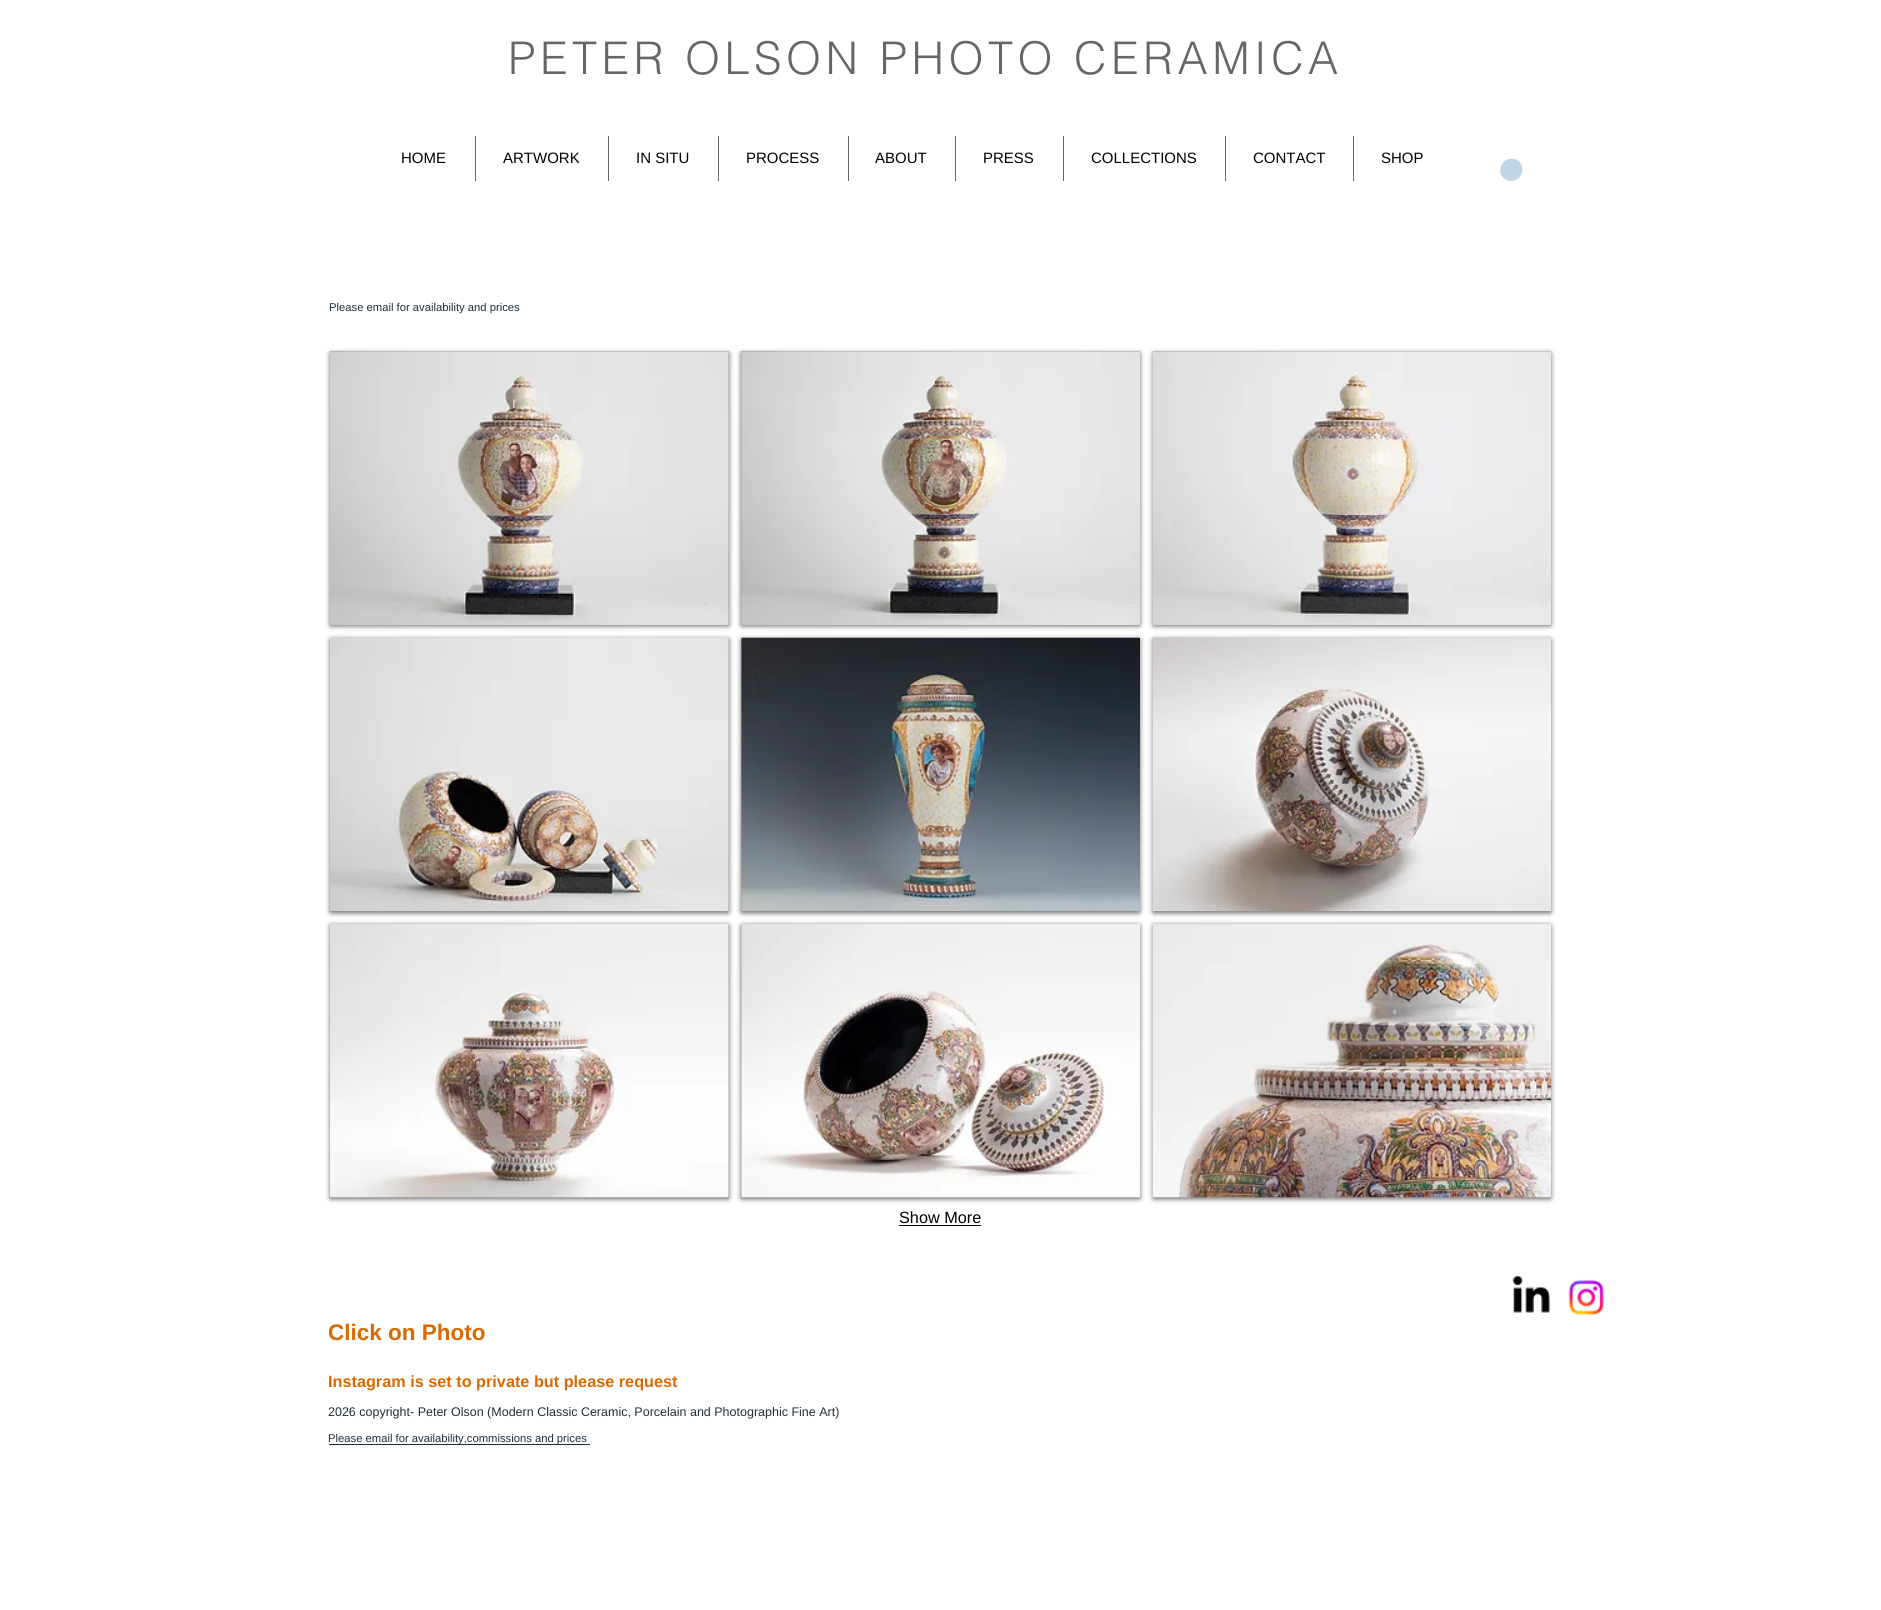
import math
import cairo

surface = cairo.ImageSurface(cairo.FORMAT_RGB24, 1881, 1610)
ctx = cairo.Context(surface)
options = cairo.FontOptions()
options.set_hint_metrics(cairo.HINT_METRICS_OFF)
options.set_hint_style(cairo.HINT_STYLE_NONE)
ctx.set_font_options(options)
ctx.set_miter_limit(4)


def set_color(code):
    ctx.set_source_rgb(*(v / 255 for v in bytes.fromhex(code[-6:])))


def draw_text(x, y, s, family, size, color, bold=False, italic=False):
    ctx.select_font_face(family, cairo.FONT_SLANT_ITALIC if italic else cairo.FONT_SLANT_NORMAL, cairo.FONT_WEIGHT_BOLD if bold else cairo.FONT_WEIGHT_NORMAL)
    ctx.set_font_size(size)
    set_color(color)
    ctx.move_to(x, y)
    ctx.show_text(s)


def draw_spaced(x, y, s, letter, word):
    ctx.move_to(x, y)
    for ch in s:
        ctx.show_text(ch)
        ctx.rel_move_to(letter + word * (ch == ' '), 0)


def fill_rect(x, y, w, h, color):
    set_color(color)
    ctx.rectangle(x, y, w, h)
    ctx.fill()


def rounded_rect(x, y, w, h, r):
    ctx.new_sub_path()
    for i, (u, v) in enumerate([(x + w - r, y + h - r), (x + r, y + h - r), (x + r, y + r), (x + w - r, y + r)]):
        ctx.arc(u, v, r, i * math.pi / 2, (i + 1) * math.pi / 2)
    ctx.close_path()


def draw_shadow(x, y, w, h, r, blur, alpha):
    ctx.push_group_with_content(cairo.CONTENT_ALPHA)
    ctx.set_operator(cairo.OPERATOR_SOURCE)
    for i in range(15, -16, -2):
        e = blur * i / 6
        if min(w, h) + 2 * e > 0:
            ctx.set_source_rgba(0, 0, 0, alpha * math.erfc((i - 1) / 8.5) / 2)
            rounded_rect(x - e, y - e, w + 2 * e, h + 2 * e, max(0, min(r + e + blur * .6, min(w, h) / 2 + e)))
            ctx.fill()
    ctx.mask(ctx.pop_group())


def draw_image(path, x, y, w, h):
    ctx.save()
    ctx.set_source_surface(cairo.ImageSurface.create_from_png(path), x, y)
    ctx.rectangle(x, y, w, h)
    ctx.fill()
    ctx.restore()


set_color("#ffffff")
ctx.paint()
ctx.select_font_face("helvetica Light")
ctx.set_font_size(45)
set_color("#666666")
draw_spaced(508, 74, "PETER OLSON PHOTO CERAMICA", 4.5, 0)
draw_text(401, 163, "HOME", "Liberation Sans", 15, "#000000")
fill_rect(475, 136, 1, 45, "#666666")
draw_text(503, 163, "ARTWORK", "Liberation Sans", 15, "#000000")
fill_rect(608, 136, 1, 45, "#666666")
draw_text(636, 163, "IN SITU", "Liberation Sans", 15, "#000000")
fill_rect(718, 136, 1, 45, "#666666")
draw_text(746, 163, "PROCESS", "Liberation Sans", 15, "#000000")
fill_rect(848, 136, 1, 45, "#666666")
draw_text(875, 163, "ABOUT", "Liberation Sans", 15, "#000000")
fill_rect(955, 136, 1, 45, "#666666")
draw_text(983, 163, "PRESS", "Liberation Sans", 15, "#000000")
fill_rect(1063, 136, 1, 45, "#666666")
draw_text(1091, 163, "COLLECTIONS", "Liberation Sans", 15, "#000000")
fill_rect(1225, 136, 1, 45, "#666666")
draw_text(1253, 163, "CONTACT", "Liberation Sans", 15, "#000000")
fill_rect(1353, 136, 1, 45, "#666666")
draw_text(1381, 163, "SHOP", "Liberation Sans", 15, "#000000")
set_color("#c0d5e5")
ctx.new_path()
ctx.move_to(1514.5, 159)
ctx.curve_to(1528.5, 163.5, 1522, 184.5, 1508, 180.5)
ctx.curve_to(1494, 176.5, 1500.5, 155.5, 1514.5, 159)
ctx.close_path()
ctx.fill()
draw_text(329, 311, "Please email for availability and prices", "Liberation Sans", 11.25, "#1e2f3b")
set_color("#000000")
draw_shadow(330, 353, 399, 273, 1, 2.5, 0.6)
set_color("#999999")
rounded_rect(330, 351, 399, 274, 1)
ctx.fill()
draw_image("assets/img1.png", 330, 351, 399, 274)
draw_text(512, 408, "r", "Liberation Sans", 16.25, "#dad7d2")
set_color("#000000")
draw_shadow(741, 353, 399, 273, 1, 2.5, 0.6)
set_color("#999999")
rounded_rect(741, 351, 399, 274, 1)
ctx.fill()
draw_image("assets/img2.png", 741, 351, 399, 274)
set_color("#000000")
draw_shadow(1153, 353, 398, 273, 1, 2.5, 0.6)
set_color("#999999")
rounded_rect(1153, 351, 398, 274, 1)
ctx.fill()
draw_image("assets/img3.png", 1152, 351, 399, 274)
set_color("#000000")
draw_shadow(330, 639, 399, 274, 1, 2.5, 0.6)
set_color("#999999")
rounded_rect(330, 638, 399, 273, 1)
ctx.fill()
draw_image("assets/img4.png", 330, 637, 399, 275)
set_color("#000000")
draw_shadow(741, 639, 399, 274, 1, 2.5, 0.6)
set_color("#999999")
rounded_rect(741, 638, 399, 273, 1)
ctx.fill()
draw_image("assets/img5.png", 741, 637, 399, 274)
set_color("#000000")
draw_shadow(1153, 639, 398, 274, 1, 2.5, 0.6)
draw_image("assets/img6.png", 1152, 637, 399, 275)
draw_shadow(330, 925, 399, 274, 1, 2.5, 0.6)
set_color("#999999")
rounded_rect(330, 924, 399, 274, 1)
ctx.fill()
draw_image("assets/img7.png", 330, 924, 399, 274)
set_color("#000000")
draw_shadow(741, 925, 399, 274, 1, 2.5, 0.6)
set_color("#999999")
rounded_rect(741, 924, 399, 274, 1)
ctx.fill()
draw_image("assets/img8.png", 741, 924, 399, 274)
set_color("#000000")
draw_shadow(1153, 925, 398, 274, 1, 2.5, 0.6)
set_color("#999999")
rounded_rect(1153, 924, 398, 274, 1)
ctx.fill()
draw_image("assets/img9.png", 1152, 924, 400, 274)
draw_text(899, 1223, "Show More", "Liberation Sans", 16.25, "#000000")
fill_rect(899, 1225, 82, 1, "#000000")
draw_image("assets/img10.png", 1512, 1275, 39, 38)
draw_image("assets/img11.png", 1568, 1279, 36, 37)
draw_text(328, 1340, "Click on Photo", "Liberation Sans", 22.5, "#d96900", bold=True)
draw_text(328, 1387, "Instagram is set to private but please request", "Liberation Sans", 16.25, "#d96900", bold=True)
draw_text(328, 1416, "2026 copyright- Peter Olson (Modern Classic Ceramic, Porcelain and Photographic Fine Art)", "Liberation Sans", 12.5, "#1e2f3b")
fill_rect(329, 1444, 261, 1, "#1e2f3b")
draw_text(328, 1442, "Please email for availability,commissions and prices", "Liberation Sans", 11.25, "#1e2f3b")
surface.write_to_png("output.png")
